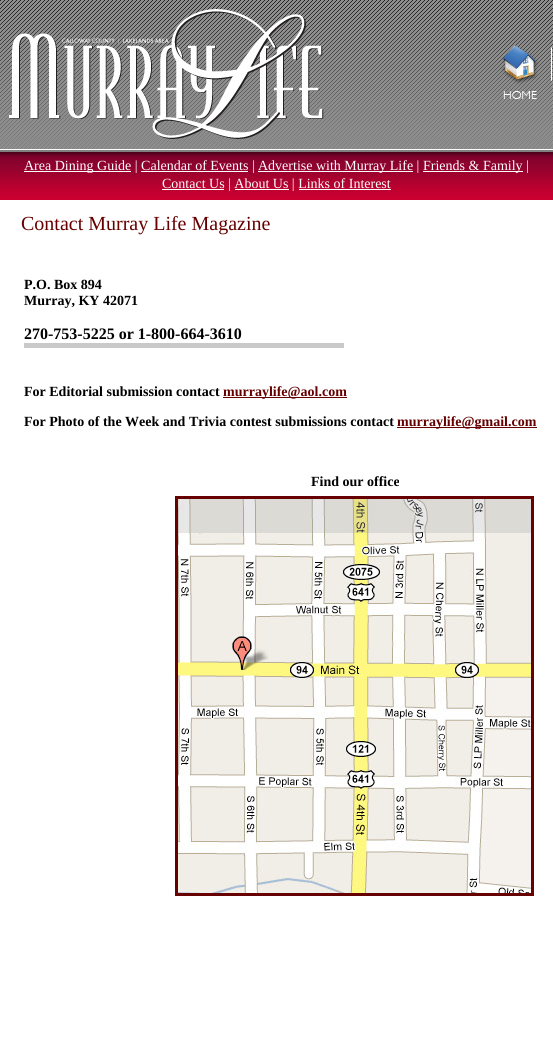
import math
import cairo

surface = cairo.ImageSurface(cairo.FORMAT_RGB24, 553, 1048)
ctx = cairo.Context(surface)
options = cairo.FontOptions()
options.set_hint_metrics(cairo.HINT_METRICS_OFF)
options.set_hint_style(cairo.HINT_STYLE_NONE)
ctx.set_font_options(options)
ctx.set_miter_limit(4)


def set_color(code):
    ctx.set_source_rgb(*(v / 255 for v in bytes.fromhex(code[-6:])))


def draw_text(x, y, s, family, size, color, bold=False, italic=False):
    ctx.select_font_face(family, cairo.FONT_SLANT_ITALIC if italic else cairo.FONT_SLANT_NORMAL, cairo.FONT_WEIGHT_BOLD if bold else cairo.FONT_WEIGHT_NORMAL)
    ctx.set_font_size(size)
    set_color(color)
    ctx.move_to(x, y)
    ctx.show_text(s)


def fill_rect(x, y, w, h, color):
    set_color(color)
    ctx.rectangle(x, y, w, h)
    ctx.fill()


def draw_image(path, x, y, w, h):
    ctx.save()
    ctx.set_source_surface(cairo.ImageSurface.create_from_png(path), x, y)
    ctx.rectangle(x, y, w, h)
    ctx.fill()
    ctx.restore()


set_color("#ffffff")
ctx.paint()
draw_image("assets/img1.png", 0, 0, 553, 150)
draw_image("assets/img2.png", 9, 9, 543, 130)
draw_image("assets/img3.png", 0, 150, 553, 50)
fill_rect(24, 171, 107, 1, "#ffffff")
draw_text(24, 170, "Area Dining Guide | Calendar of Events |", "Liberation Serif", 14, "#ffffff")
fill_rect(141, 171, 107, 1, "#ffffff")
fill_rect(258, 171, 155, 1, "#ffffff")
draw_text(258, 170, "Advertise with Murray Life |", "Liberation Serif", 14, "#ffffff")
fill_rect(423, 171, 100, 1, "#ffffff")
draw_text(423, 170, "Friends & Family |", "Liberation Serif", 14, "#ffffff")
draw_text(162, 188, "Contact Us", "Liberation Serif", 14, "#ffffff")
fill_rect(162, 189, 62, 1, "#ffffff")
draw_text(228, 188, "| About Us | Links of Interest", "Liberation Serif", 14, "#ffffff")
fill_rect(235, 189, 54, 1, "#ffffff")
fill_rect(299, 189, 92, 1, "#ffffff")
draw_text(21, 230, "Contact Murray Life Magazine", "Liberation Serif", 20, "#660000")
draw_text(24, 289, "P.O. Box 894", "Liberation Serif", 14, "#000000", bold=True)
draw_text(24, 305, "Murray, KY 42071", "Liberation Serif", 14, "#000000", bold=True)
draw_text(24, 339, "270-753-5225 or 1-800-664-3610", "Liberation Serif", 16, "#000000", bold=True)
fill_rect(24, 343, 320, 5, "#c9c9c9")
draw_text(24, 396, "For Editorial submission contact", "Liberation Serif", 14, "#000000", bold=True)
fill_rect(223, 397, 124, 1, "#660000")
draw_text(223, 396, "murraylife@aol.com", "Liberation Serif", 14, "#660000", bold=True)
draw_text(24, 426, "For Photo of the Week and Trivia contest submissions contact", "Liberation Serif", 14, "#000000", bold=True)
fill_rect(397, 427, 140, 1, "#660000")
draw_text(397, 426, "murraylife@gmail.com", "Liberation Serif", 14, "#660000", bold=True)
draw_text(311, 486, "Find our office", "Liberation Serif", 14, "#000000", bold=True)
draw_image("assets/img4.png", 175, 496, 359, 400)
surface.write_to_png("output.png")
